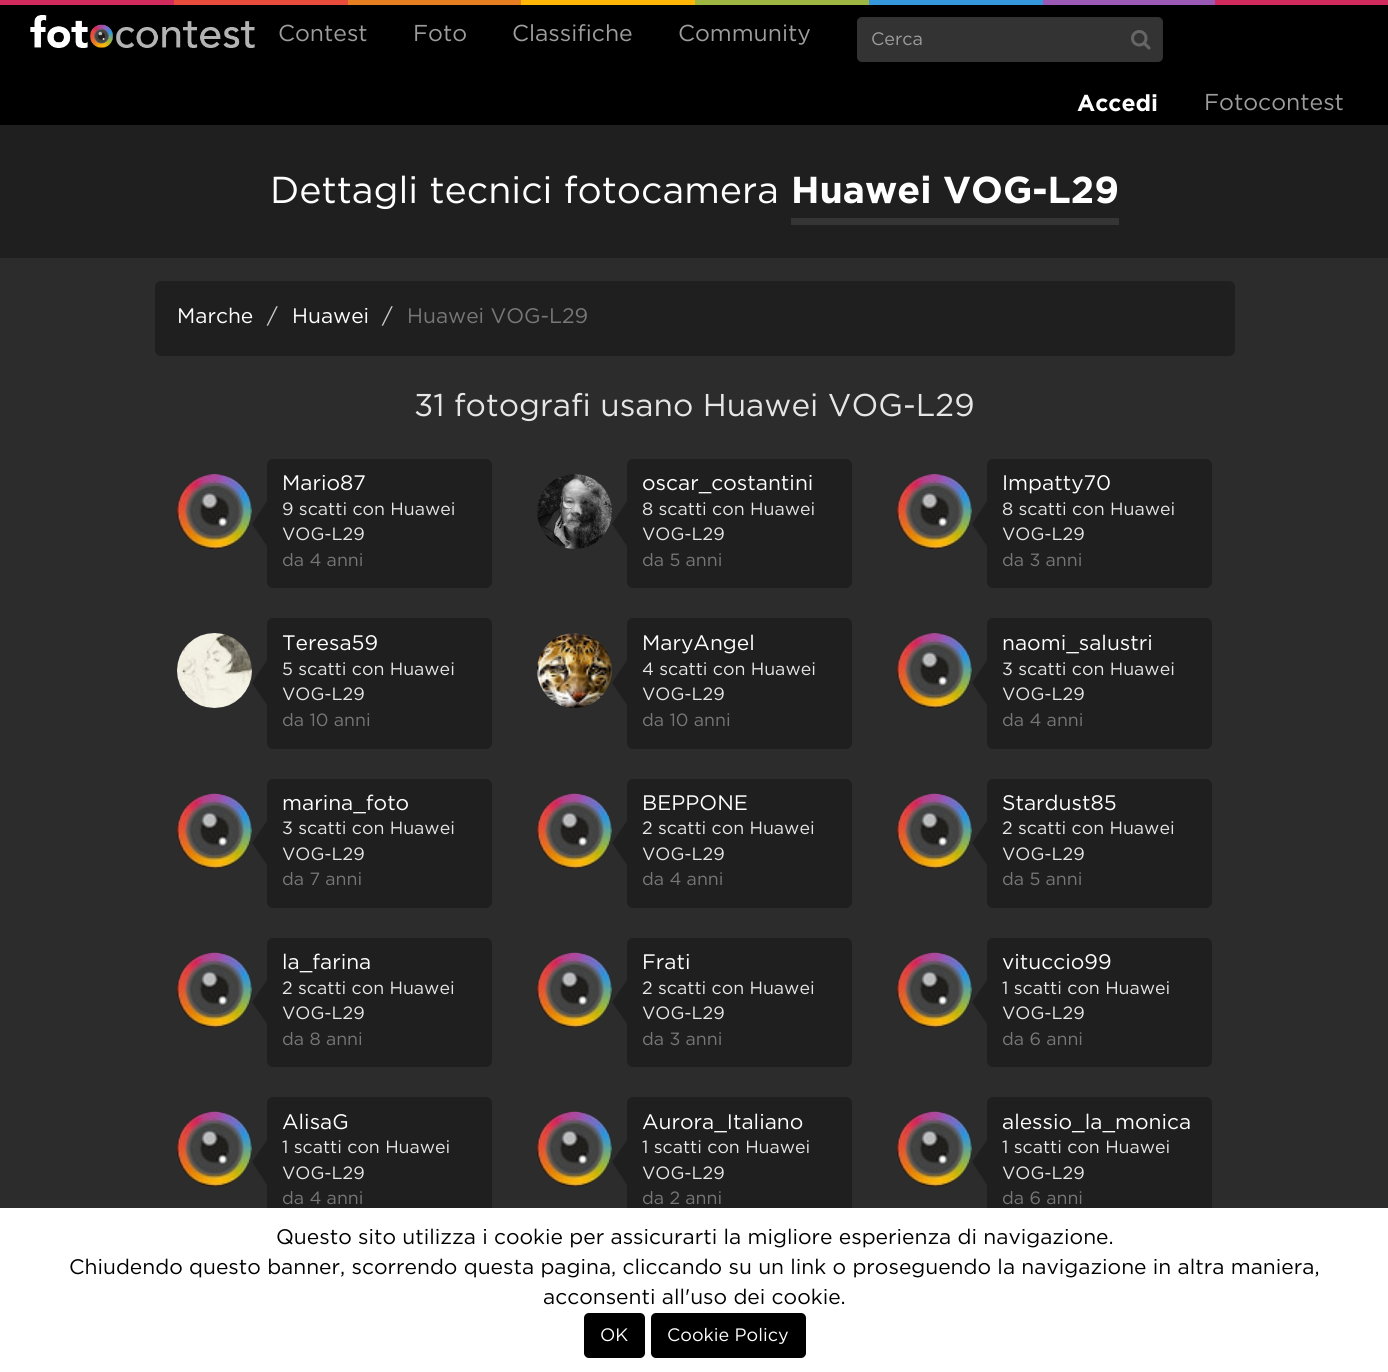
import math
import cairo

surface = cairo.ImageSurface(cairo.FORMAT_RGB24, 1388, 1372)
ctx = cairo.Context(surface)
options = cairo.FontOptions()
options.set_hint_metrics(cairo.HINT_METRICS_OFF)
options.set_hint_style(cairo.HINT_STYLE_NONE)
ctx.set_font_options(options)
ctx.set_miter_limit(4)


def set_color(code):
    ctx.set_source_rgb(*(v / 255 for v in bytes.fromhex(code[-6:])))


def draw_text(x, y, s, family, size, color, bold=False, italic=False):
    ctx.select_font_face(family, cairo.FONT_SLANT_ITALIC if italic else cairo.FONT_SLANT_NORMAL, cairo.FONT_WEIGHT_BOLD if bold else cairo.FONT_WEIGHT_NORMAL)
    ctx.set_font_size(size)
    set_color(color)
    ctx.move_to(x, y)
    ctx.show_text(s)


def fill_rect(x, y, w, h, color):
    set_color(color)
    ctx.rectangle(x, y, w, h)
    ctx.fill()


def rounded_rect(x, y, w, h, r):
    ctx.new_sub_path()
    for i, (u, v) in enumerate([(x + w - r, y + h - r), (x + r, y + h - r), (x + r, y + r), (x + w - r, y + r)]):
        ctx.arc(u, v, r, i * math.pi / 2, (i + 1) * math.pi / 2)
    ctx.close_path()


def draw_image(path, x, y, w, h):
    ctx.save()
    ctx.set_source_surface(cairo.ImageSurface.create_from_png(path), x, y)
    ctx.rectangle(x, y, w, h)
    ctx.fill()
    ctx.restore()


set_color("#2c2c2c")
ctx.paint()
fill_rect(0, 5, 1388, 120, "#000000")
fill_rect(0, 0, 174, 5, "#d12b5d")
fill_rect(174, 0, 174, 5, "#e74c3c")
fill_rect(348, 0, 173, 5, "#e67e22")
fill_rect(521, 0, 174, 5, "#ffb606")
fill_rect(695, 0, 174, 5, "#9cb641")
fill_rect(869, 0, 174, 5, "#3498db")
fill_rect(1043, 0, 172, 5, "#9b59b6")
fill_rect(1215, 0, 173, 5, "#d12b5d")
draw_image("assets/img1.png", 30, 15, 225, 33)
draw_text(278, 41, "Contest", "Gotham", 23, "#9d9d9d")
draw_text(413, 41, "Foto", "Gotham", 23, "#9d9d9d")
draw_text(512, 41, "Classifiche", "Gotham", 23, "#9d9d9d")
draw_text(678, 41, "Community", "Gotham", 23, "#9d9d9d")
set_color("#333333")
rounded_rect(857, 17, 306, 45, 5)
ctx.fill()
ctx.set_source_rgba(0, 0, 0, 0.07)
ctx.new_path()
ctx.move_to(861, 18)
ctx.line_to(1158, 18)
ctx.curve_to(1160, 18, 1162, 20, 1162, 22)
ctx.line_to(1162, 58)
ctx.line_to(1161, 61)
ctx.curve_to(1162, 60, 1163, 58, 1163, 57)
ctx.line_to(1163, 22)
ctx.curve_to(1163, 19, 1161, 17, 1158, 17)
ctx.line_to(862, 17)
ctx.curve_to(860, 17, 859, 18, 858, 19)
ctx.close_path()
ctx.fill()
draw_text(871, 45, "Cerca", "Gotham", 18, "#9d9d9d")
draw_image("assets/img2.png", 1131, 30, 20, 20)
draw_text(1077, 111, "Accedi", "Gotham", 23, "#ffffff", bold=True)
draw_text(1204, 110, "Fotocontest", "Gotham", 23, "#9d9d9d")
fill_rect(0, 125, 1388, 133, "#1f1f1f")
draw_text(270, 203, "Dettagli tecnici fotocamera", "Gotham", 37.5, "#ffffff")
draw_text(791, 203, "Huawei VOG-L29", "Gotham", 37.5, "#ffffff", bold=True)
fill_rect(791, 218, 328, 7, "#353535")
set_color("#1f1f1f")
rounded_rect(155, 281, 1080, 75, 6)
ctx.fill()
draw_text(177, 323, "Marche", "Gotham", 21, "#ffffff")
draw_text(267, 323, "/", "Gotham", 21, "#cccccc")
draw_text(292, 323, "Huawei", "Gotham", 21, "#ffffff")
draw_text(382, 323, "/", "Gotham", 21, "#cccccc")
draw_text(407, 323, "Huawei VOG-L29", "Gotham", 21, "#777777")
draw_text(414, 416, "31 fotografi usano Huawei VOG-L29", "Gotham", 31.5, "#e6e6e6")
draw_image("assets/img3.png", 177, 474, 75, 75)
set_color("#1f1f1f")
rounded_rect(267, 459, 225, 129, 6)
ctx.fill()
draw_text(282, 490, "Mario87", "Gotham", 21, "#ffffff")
set_color("#1f1f1f")
ctx.new_path()
ctx.move_to(267, 501)
ctx.line_to(267, 546)
ctx.line_to(252, 524)
ctx.close_path()
ctx.fill()
draw_text(282, 515, "9 scatti con Huawei", "Gotham", 17.75, "#e6e6e6")
draw_text(282, 540, "VOG-L29", "Gotham", 17.75, "#e6e6e6")
draw_text(282, 566, "da 4 anni", "Gotham", 17.75, "#777777")
draw_image("assets/img4.png", 537, 474, 75, 75)
set_color("#1f1f1f")
rounded_rect(627, 459, 225, 129, 6)
ctx.fill()
draw_text(642, 490, "oscar_costantini", "Gotham", 21, "#ffffff")
set_color("#1f1f1f")
ctx.new_path()
ctx.move_to(627, 501)
ctx.line_to(627, 546)
ctx.line_to(612, 524)
ctx.close_path()
ctx.fill()
draw_text(642, 515, "8 scatti con Huawei", "Gotham", 17.75, "#e6e6e6")
draw_text(642, 540, "VOG-L29", "Gotham", 17.75, "#e6e6e6")
draw_text(642, 566, "da 5 anni", "Gotham", 17.75, "#777777")
draw_image("assets/img3.png", 897, 474, 75, 75)
set_color("#1f1f1f")
rounded_rect(987, 459, 225, 129, 6)
ctx.fill()
draw_text(1002, 490, "Impatty70", "Gotham", 21, "#ffffff")
set_color("#1f1f1f")
ctx.new_path()
ctx.move_to(987, 501)
ctx.line_to(987, 546)
ctx.line_to(972, 524)
ctx.close_path()
ctx.fill()
draw_text(1002, 515, "8 scatti con Huawei", "Gotham", 17.75, "#e6e6e6")
draw_text(1002, 540, "VOG-L29", "Gotham", 17.75, "#e6e6e6")
draw_text(1002, 566, "da 3 anni", "Gotham", 17.75, "#777777")
draw_image("assets/img5.png", 177, 633, 75, 75)
set_color("#1f1f1f")
rounded_rect(267, 618, 225, 131, 6)
ctx.fill()
draw_text(282, 650, "Teresa59", "Gotham", 21, "#ffffff")
set_color("#1f1f1f")
ctx.new_path()
ctx.move_to(267, 660)
ctx.line_to(267, 705)
ctx.line_to(252, 683)
ctx.close_path()
ctx.fill()
draw_text(282, 675, "5 scatti con Huawei", "Gotham", 17.75, "#e6e6e6")
draw_text(282, 700, "VOG-L29", "Gotham", 17.75, "#e6e6e6")
draw_text(282, 726, "da 10 anni", "Gotham", 17.75, "#777777")
draw_image("assets/img6.png", 537, 633, 75, 75)
set_color("#1f1f1f")
rounded_rect(627, 618, 225, 131, 6)
ctx.fill()
draw_text(642, 650, "MaryAngel", "Gotham", 21, "#ffffff")
set_color("#1f1f1f")
ctx.new_path()
ctx.move_to(627, 660)
ctx.line_to(627, 705)
ctx.line_to(612, 683)
ctx.close_path()
ctx.fill()
draw_text(642, 675, "4 scatti con Huawei", "Gotham", 17.75, "#e6e6e6")
draw_text(642, 700, "VOG-L29", "Gotham", 17.75, "#e6e6e6")
draw_text(642, 726, "da 10 anni", "Gotham", 17.75, "#777777")
draw_image("assets/img7.png", 897, 633, 75, 75)
set_color("#1f1f1f")
rounded_rect(987, 618, 225, 131, 6)
ctx.fill()
draw_text(1002, 650, "naomi_salustri", "Gotham", 21, "#ffffff")
set_color("#1f1f1f")
ctx.new_path()
ctx.move_to(987, 660)
ctx.line_to(987, 705)
ctx.line_to(972, 683)
ctx.close_path()
ctx.fill()
draw_text(1002, 675, "3 scatti con Huawei", "Gotham", 17.75, "#e6e6e6")
draw_text(1002, 700, "VOG-L29", "Gotham", 17.75, "#e6e6e6")
draw_text(1002, 726, "da 4 anni", "Gotham", 17.75, "#777777")
draw_image("assets/img8.png", 177, 793, 75, 76)
set_color("#1f1f1f")
rounded_rect(267, 779, 225, 129, 6)
ctx.fill()
draw_text(282, 810, "marina_foto", "Gotham", 21, "#ffffff")
set_color("#1f1f1f")
ctx.new_path()
ctx.move_to(267, 821)
ctx.line_to(267, 865)
ctx.line_to(252, 843)
ctx.close_path()
ctx.fill()
draw_text(282, 834, "3 scatti con Huawei", "Gotham", 17.75, "#e6e6e6")
draw_text(282, 860, "VOG-L29", "Gotham", 17.75, "#e6e6e6")
draw_text(282, 885, "da 7 anni", "Gotham", 17.75, "#777777")
draw_image("assets/img9.png", 537, 793, 75, 76)
set_color("#1f1f1f")
rounded_rect(627, 779, 225, 129, 6)
ctx.fill()
draw_text(642, 810, "BEPPONE", "Gotham", 21, "#ffffff")
set_color("#1f1f1f")
ctx.new_path()
ctx.move_to(627, 821)
ctx.line_to(627, 865)
ctx.line_to(612, 843)
ctx.close_path()
ctx.fill()
draw_text(642, 834, "2 scatti con Huawei", "Gotham", 17.75, "#e6e6e6")
draw_text(642, 860, "VOG-L29", "Gotham", 17.75, "#e6e6e6")
draw_text(642, 885, "da 4 anni", "Gotham", 17.75, "#777777")
draw_image("assets/img8.png", 897, 793, 75, 76)
set_color("#1f1f1f")
rounded_rect(987, 779, 225, 129, 6)
ctx.fill()
draw_text(1002, 810, "Stardust85", "Gotham", 21, "#ffffff")
set_color("#1f1f1f")
ctx.new_path()
ctx.move_to(987, 821)
ctx.line_to(987, 865)
ctx.line_to(972, 843)
ctx.close_path()
ctx.fill()
draw_text(1002, 834, "2 scatti con Huawei", "Gotham", 17.75, "#e6e6e6")
draw_text(1002, 860, "VOG-L29", "Gotham", 17.75, "#e6e6e6")
draw_text(1002, 885, "da 5 anni", "Gotham", 17.75, "#777777")
draw_image("assets/img10.png", 177, 952, 75, 76)
set_color("#1f1f1f")
rounded_rect(267, 938, 225, 129, 6)
ctx.fill()
draw_text(282, 969, "la_farina", "Gotham", 21, "#ffffff")
set_color("#1f1f1f")
ctx.new_path()
ctx.move_to(267, 980)
ctx.line_to(267, 1024)
ctx.line_to(252, 1002)
ctx.close_path()
ctx.fill()
draw_text(282, 994, "2 scatti con Huawei", "Gotham", 17.75, "#e6e6e6")
draw_text(282, 1019, "VOG-L29", "Gotham", 17.75, "#e6e6e6")
draw_text(282, 1045, "da 8 anni", "Gotham", 17.75, "#777777")
draw_image("assets/img11.png", 537, 952, 75, 76)
set_color("#1f1f1f")
rounded_rect(627, 938, 225, 129, 6)
ctx.fill()
draw_text(642, 969, "Frati", "Gotham", 21, "#ffffff")
set_color("#1f1f1f")
ctx.new_path()
ctx.move_to(627, 980)
ctx.line_to(627, 1024)
ctx.line_to(612, 1002)
ctx.close_path()
ctx.fill()
draw_text(642, 994, "2 scatti con Huawei", "Gotham", 17.75, "#e6e6e6")
draw_text(642, 1019, "VOG-L29", "Gotham", 17.75, "#e6e6e6")
draw_text(642, 1045, "da 3 anni", "Gotham", 17.75, "#777777")
draw_image("assets/img10.png", 897, 952, 75, 76)
set_color("#1f1f1f")
rounded_rect(987, 938, 225, 129, 6)
ctx.fill()
draw_text(1002, 969, "vituccio99", "Gotham", 21, "#ffffff")
set_color("#1f1f1f")
ctx.new_path()
ctx.move_to(987, 980)
ctx.line_to(987, 1024)
ctx.line_to(972, 1002)
ctx.close_path()
ctx.fill()
draw_text(1002, 994, "1 scatti con Huawei", "Gotham", 17.75, "#e6e6e6")
draw_text(1002, 1019, "VOG-L29", "Gotham", 17.75, "#e6e6e6")
draw_text(1002, 1045, "da 6 anni", "Gotham", 17.75, "#777777")
draw_image("assets/img8.png", 177, 1111, 75, 76)
set_color("#1f1f1f")
rounded_rect(267, 1097, 225, 130, 6)
ctx.fill()
draw_text(282, 1129, "AlisaG", "Gotham", 21, "#ffffff")
set_color("#1f1f1f")
ctx.new_path()
ctx.move_to(267, 1140)
ctx.line_to(267, 1185)
ctx.line_to(252, 1162)
ctx.close_path()
ctx.fill()
draw_text(282, 1153, "1 scatti con Huawei", "Gotham", 17.75, "#e6e6e6")
draw_text(282, 1179, "VOG-L29", "Gotham", 17.75, "#e6e6e6")
draw_text(282, 1204, "da 4 anni", "Gotham", 17.75, "#777777")
draw_image("assets/img9.png", 537, 1111, 75, 76)
set_color("#1f1f1f")
rounded_rect(627, 1097, 225, 130, 6)
ctx.fill()
draw_text(642, 1129, "Aurora_Italiano", "Gotham", 21, "#ffffff")
set_color("#1f1f1f")
ctx.new_path()
ctx.move_to(627, 1140)
ctx.line_to(627, 1185)
ctx.line_to(612, 1162)
ctx.close_path()
ctx.fill()
draw_text(642, 1153, "1 scatti con Huawei", "Gotham", 17.75, "#e6e6e6")
draw_text(642, 1179, "VOG-L29", "Gotham", 17.75, "#e6e6e6")
draw_text(642, 1204, "da 2 anni", "Gotham", 17.75, "#777777")
draw_image("assets/img8.png", 897, 1111, 75, 76)
set_color("#1f1f1f")
rounded_rect(987, 1097, 225, 130, 6)
ctx.fill()
draw_text(1002, 1129, "alessio_la_monica", "Gotham", 21, "#ffffff")
set_color("#1f1f1f")
ctx.new_path()
ctx.move_to(987, 1140)
ctx.line_to(987, 1185)
ctx.line_to(972, 1162)
ctx.close_path()
ctx.fill()
draw_text(1002, 1153, "1 scatti con Huawei", "Gotham", 17.75, "#e6e6e6")
draw_text(1002, 1179, "VOG-L29", "Gotham", 17.75, "#e6e6e6")
draw_text(1002, 1204, "da 6 anni", "Gotham", 17.75, "#777777")
fill_rect(0, 1208, 1388, 164, "#ffffff")
draw_text(276, 1244, "Questo sito utilizza i cookie per assicurarti la migliore esperienza di navigazione.", "Gotham", 21, "#000000")
draw_text(69, 1274, "Chiudendo questo banner, scorrendo questa pagina, cliccando su un link o proseguendo la navigazione in altra maniera,", "Gotham", 21, "#000000")
draw_text(543, 1304, "acconsenti all'uso dei cookie.", "Gotham", 21, "#000000")
rounded_rect(584, 1313, 61, 45, 5)
ctx.fill()
draw_text(600, 1341, "OK", "Gotham", 18, "#ffffff")
set_color("#000000")
rounded_rect(651, 1313, 155, 45, 5)
ctx.fill()
draw_text(667, 1341, "Cookie Policy", "Gotham", 18, "#ffffff")
surface.write_to_png("output.png")
